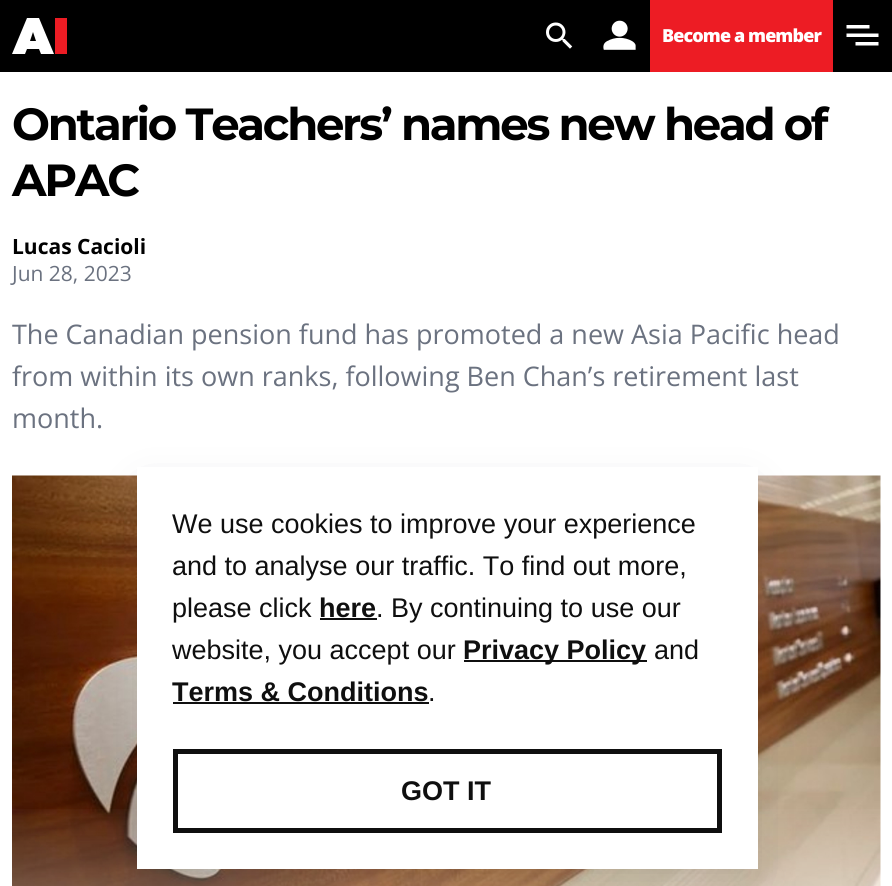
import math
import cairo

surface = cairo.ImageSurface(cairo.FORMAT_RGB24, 892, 886)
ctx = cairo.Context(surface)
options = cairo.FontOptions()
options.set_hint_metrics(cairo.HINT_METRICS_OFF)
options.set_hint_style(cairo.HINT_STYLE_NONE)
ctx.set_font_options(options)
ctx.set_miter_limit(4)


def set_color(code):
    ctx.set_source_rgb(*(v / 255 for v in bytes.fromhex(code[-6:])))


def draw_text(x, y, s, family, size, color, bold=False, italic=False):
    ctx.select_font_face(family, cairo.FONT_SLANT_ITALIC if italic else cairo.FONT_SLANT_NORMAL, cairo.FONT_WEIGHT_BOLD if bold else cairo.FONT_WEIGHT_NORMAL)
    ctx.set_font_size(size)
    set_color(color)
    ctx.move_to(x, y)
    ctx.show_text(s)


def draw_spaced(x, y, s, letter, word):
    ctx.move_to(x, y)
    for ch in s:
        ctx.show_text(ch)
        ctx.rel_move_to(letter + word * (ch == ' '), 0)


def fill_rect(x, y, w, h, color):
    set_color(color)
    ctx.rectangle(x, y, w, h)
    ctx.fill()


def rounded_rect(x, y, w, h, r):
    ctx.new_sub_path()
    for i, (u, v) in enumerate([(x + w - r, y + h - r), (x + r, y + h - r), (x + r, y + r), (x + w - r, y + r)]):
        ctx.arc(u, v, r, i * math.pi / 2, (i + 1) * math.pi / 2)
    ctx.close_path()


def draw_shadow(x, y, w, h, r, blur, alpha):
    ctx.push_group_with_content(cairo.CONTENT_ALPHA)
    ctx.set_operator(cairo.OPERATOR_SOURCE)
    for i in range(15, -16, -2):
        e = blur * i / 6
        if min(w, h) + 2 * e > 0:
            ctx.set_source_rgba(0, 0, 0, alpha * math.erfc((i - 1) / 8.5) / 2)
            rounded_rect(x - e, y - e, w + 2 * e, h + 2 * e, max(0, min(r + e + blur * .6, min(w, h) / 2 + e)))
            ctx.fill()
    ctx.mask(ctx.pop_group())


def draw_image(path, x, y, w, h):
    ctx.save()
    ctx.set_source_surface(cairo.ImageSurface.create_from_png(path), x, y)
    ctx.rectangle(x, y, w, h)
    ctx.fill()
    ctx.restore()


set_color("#ffffff")
ctx.paint()
fill_rect(0, 0, 892, 72, "#000000")
fill_rect(55, 18, 12, 36, "#ec1c24")
set_color("#ffffff")
ctx.new_path()
ctx.move_to(30, 41)
ctx.line_to(33, 32)
ctx.line_to(36, 41)
ctx.close_path()
ctx.move_to(12, 54)
ctx.line_to(25, 54)
ctx.line_to(27, 49)
ctx.line_to(39, 49)
ctx.line_to(41, 54)
ctx.line_to(54, 54)
ctx.line_to(39, 18)
ctx.line_to(27, 18)
ctx.close_path()
ctx.fill()
draw_image("assets/img1.png", 546, 22, 27, 27)
draw_image("assets/img2.png", 603, 20, 33, 30)
fill_rect(650, 0, 183, 72, "#ed1c24")
ctx.select_font_face("Open Sans ExtraBold")
ctx.set_font_size(18)
set_color("#ffffff")
draw_spaced(662, 42, "Become a member", -0.9, 0)
ctx.new_path()
ctx.move_to(846.5, 25)
ctx.line_to(869.5, 25)
ctx.line_to(869.5, 28.5)
ctx.line_to(846.5, 28.5)
ctx.close_path()
ctx.move_to(855.5, 42)
ctx.line_to(878.5, 42)
ctx.line_to(878.5, 45.5)
ctx.line_to(855.5, 45.5)
ctx.close_path()
ctx.move_to(846.5, 33.5)
ctx.line_to(878.5, 33.5)
ctx.line_to(878.5, 37)
ctx.line_to(846.5, 37)
ctx.close_path()
ctx.fill()
ctx.select_font_face("Montserrat", cairo.FONT_SLANT_NORMAL, cairo.FONT_WEIGHT_BOLD)
ctx.set_font_size(45)
set_color("#000000")
draw_spaced(12, 140, "Ontario Teachers’ names new head of", -2.25, 0)
draw_spaced(12, 196, "APAC", -2.25, 0)
draw_text(12, 254, "Lucas Cacioli", "Open Sans", 21, "#000000", bold=True)
draw_text(12, 281, "Jun 28, 2023", "Open Sans", 21, "#6b7280")
draw_text(12, 344, "The Canadian pension fund has promoted a new Asia Pacific head", "Open Sans", 27, "#6b7280")
draw_text(12, 386, "from within its own ranks, following Ben Chan’s retirement last", "Open Sans", 27, "#6b7280")
draw_text(12, 428, "month.", "Open Sans", 27, "#6b7280")
draw_image("assets/img3.png", 12, 475, 869, 411)
gradient = cairo.LinearGradient(446, 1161, 446, 801)
gradient.add_color_stop_rgba(0, 1, 1, 1, 1)
gradient.add_color_stop_rgba(1, 1, 1, 1, 0)
ctx.set_source(gradient)
ctx.rectangle(12, 809, 869, 77)
ctx.fill()
set_color("#363d4d")
draw_shadow(144, 491, 606, 387, 0, 24, 0.15)
fill_rect(137, 467, 621, 402, "#ffffff")
draw_text(172, 533, "We use cookies to improve your experience", "Liberation Sans", 27, "#0f0f0f")
draw_text(172, 575, "and to analyse our traffic. To find out more,", "Liberation Sans", 27, "#0f0f0f")
draw_text(172, 617, "please click", "Liberation Sans", 27, "#0f0f0f")
draw_text(319, 617, "here", "Liberation Sans", 27, "#0f0f0f", bold=True)
fill_rect(320, 618, 57, 2, "#0f0f0f")
draw_text(376, 617, ". By continuing to use our", "Liberation Sans", 27, "#0f0f0f")
draw_text(172, 659, "website, you accept our", "Liberation Sans", 27, "#0f0f0f")
fill_rect(464, 660, 183, 2, "#0f0f0f")
draw_text(463, 659, "Privacy Policy", "Liberation Sans", 27, "#0f0f0f", bold=True)
draw_text(654, 659, "and", "Liberation Sans", 27, "#0f0f0f")
draw_text(172, 701, "Terms & Conditions", "Liberation Sans", 27, "#0f0f0f", bold=True)
fill_rect(173, 702, 256, 2, "#0f0f0f")
draw_text(428, 701, ".", "Liberation Sans", 27, "#0f0f0f")
ctx.rectangle(175.5, 751.5, 544, 79)
ctx.set_line_width(5)
ctx.stroke()
draw_text(401, 800, "GOT IT", "Liberation Sans", 27, "#0f0f0f", bold=True)
surface.write_to_png("output.png")
